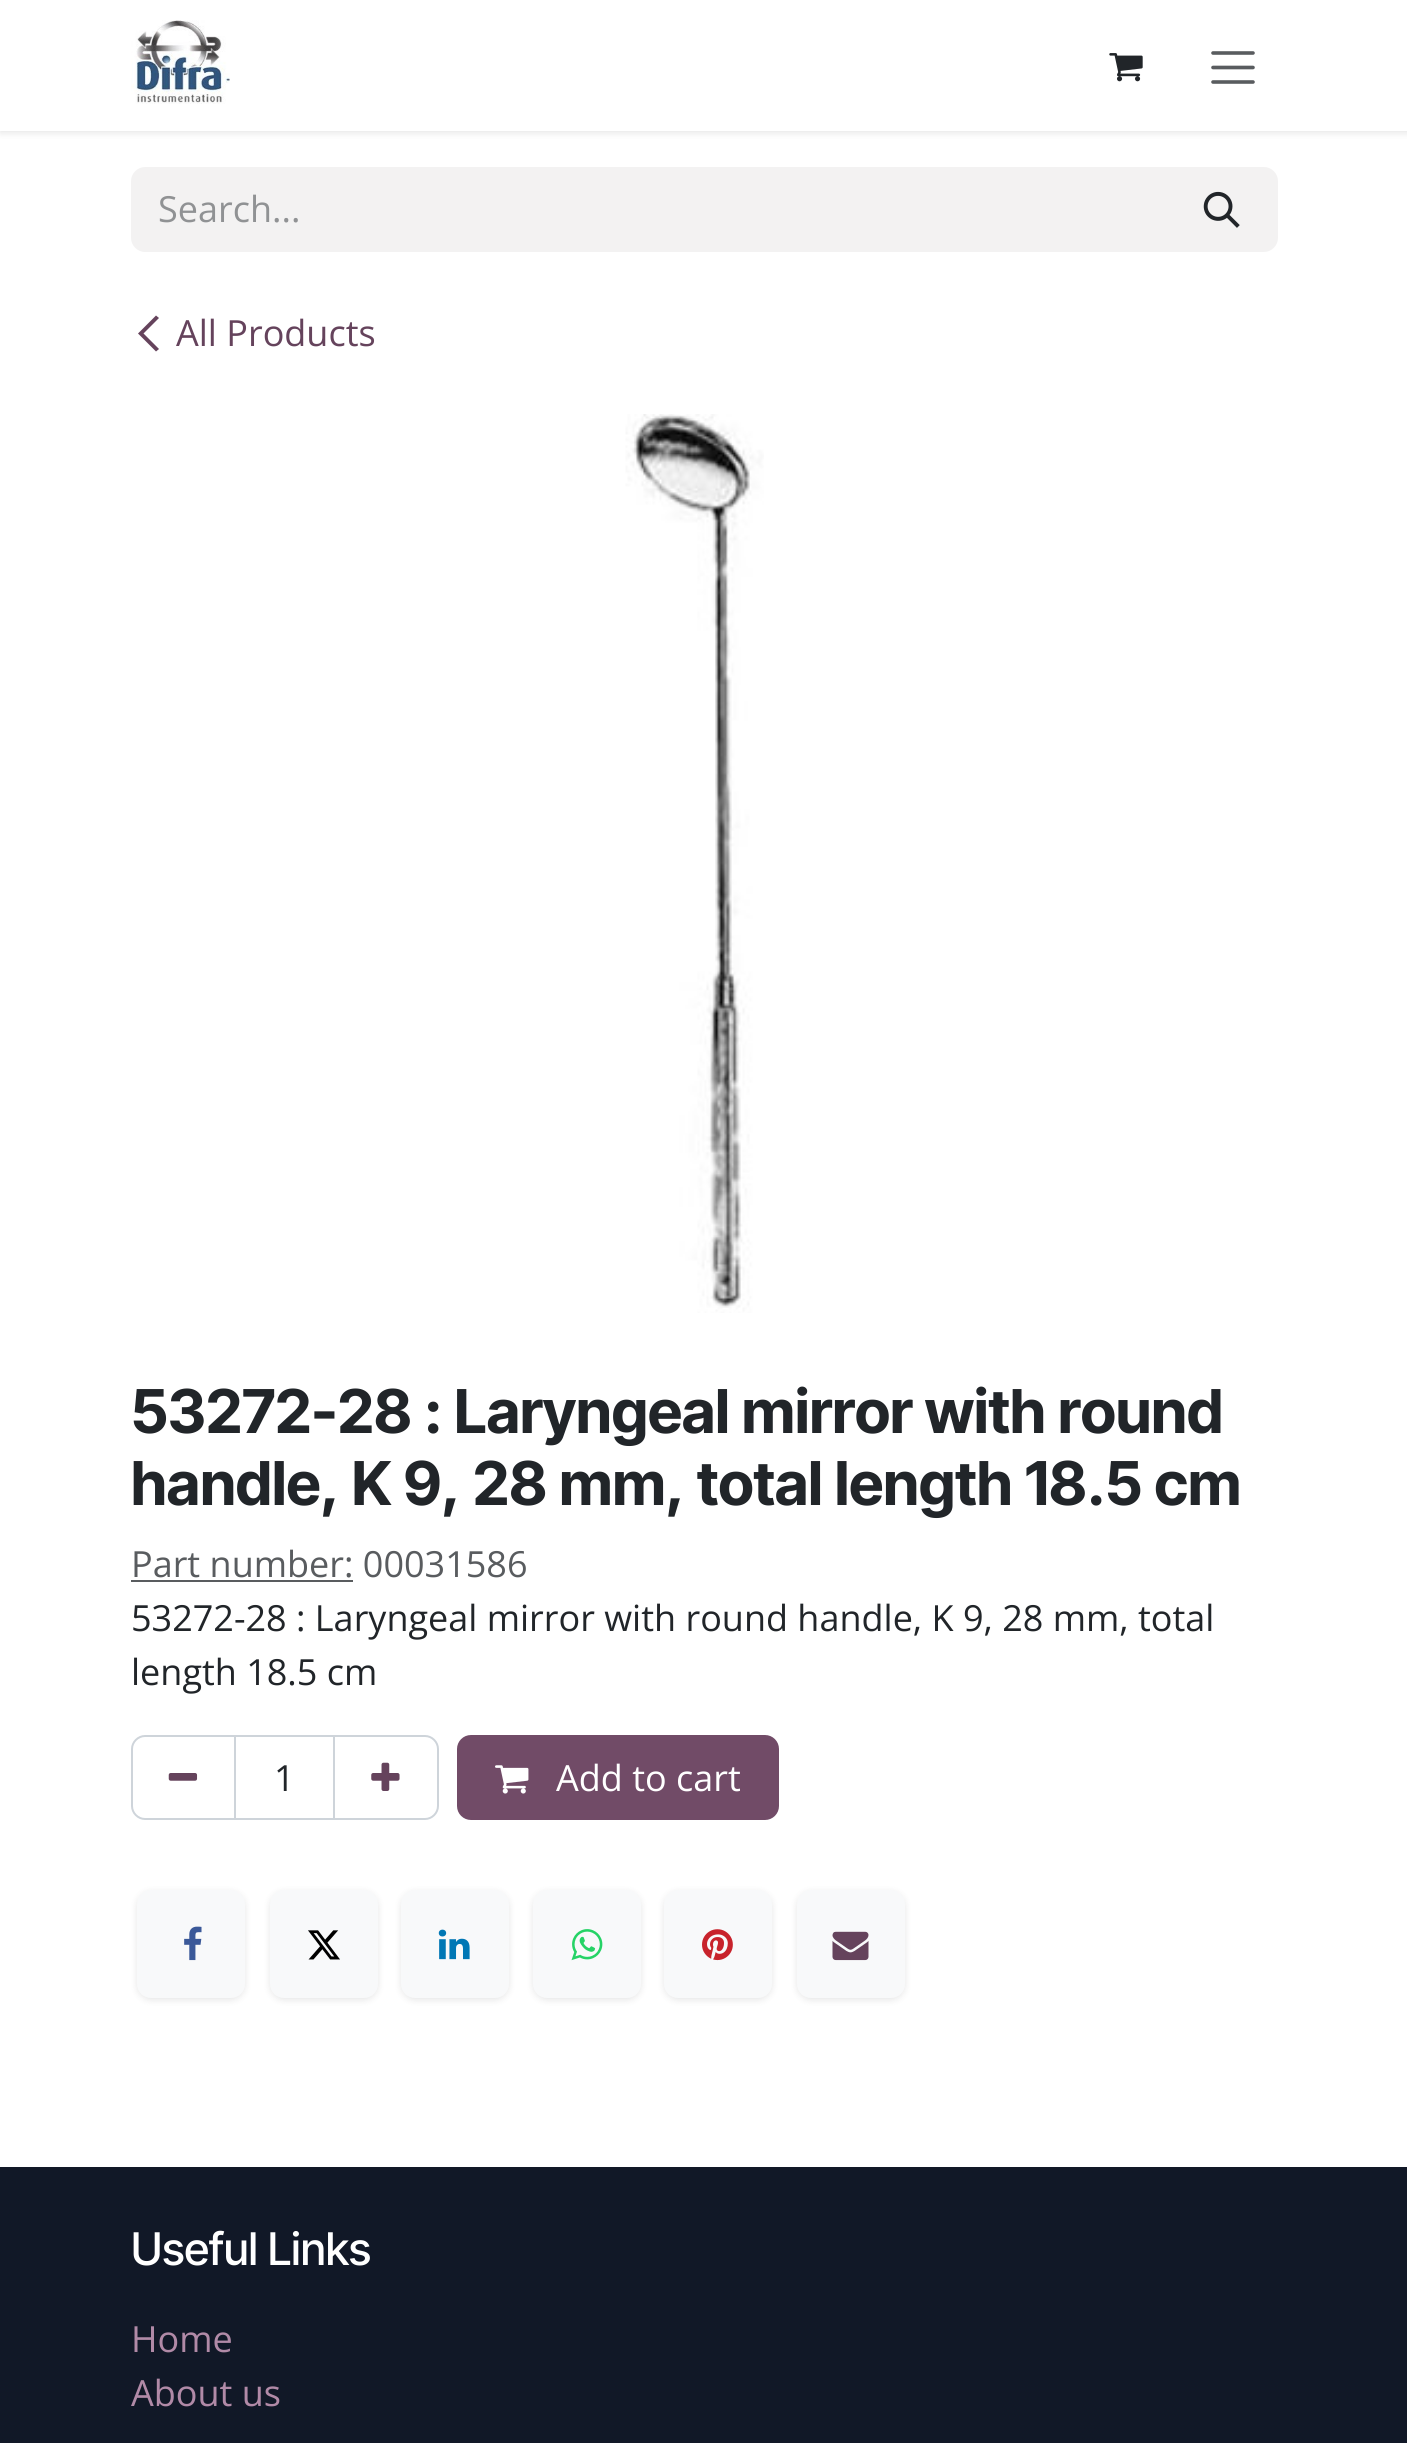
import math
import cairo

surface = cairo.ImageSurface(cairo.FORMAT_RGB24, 1407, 2443)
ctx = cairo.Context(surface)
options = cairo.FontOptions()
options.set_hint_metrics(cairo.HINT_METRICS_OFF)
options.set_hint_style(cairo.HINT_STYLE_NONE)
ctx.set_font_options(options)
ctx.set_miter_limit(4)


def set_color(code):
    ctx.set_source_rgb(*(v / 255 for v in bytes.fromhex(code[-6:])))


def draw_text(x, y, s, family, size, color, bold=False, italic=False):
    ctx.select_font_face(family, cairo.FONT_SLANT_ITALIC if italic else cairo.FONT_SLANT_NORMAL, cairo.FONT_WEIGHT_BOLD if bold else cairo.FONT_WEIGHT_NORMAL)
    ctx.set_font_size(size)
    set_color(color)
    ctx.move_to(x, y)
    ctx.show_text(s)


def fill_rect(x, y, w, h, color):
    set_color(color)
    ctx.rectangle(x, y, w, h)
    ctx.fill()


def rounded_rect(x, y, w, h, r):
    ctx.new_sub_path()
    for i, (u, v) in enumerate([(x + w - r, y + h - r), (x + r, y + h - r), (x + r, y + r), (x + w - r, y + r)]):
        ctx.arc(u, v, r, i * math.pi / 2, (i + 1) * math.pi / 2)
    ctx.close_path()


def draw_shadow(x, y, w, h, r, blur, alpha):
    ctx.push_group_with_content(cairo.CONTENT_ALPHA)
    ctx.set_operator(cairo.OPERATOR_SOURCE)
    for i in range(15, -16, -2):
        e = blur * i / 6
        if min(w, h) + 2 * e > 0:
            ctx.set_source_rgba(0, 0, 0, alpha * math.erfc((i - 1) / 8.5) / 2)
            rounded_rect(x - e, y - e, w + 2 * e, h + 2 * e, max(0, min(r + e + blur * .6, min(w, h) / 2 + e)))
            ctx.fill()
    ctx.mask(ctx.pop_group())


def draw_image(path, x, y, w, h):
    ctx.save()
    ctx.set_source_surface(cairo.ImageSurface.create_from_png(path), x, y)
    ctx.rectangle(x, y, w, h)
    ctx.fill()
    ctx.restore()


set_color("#ffffff")
ctx.paint()
set_color("#000000")
draw_shadow(0, 2, 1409, 131, 0, 3.5, 0.1)
fill_rect(0, 0, 1407, 131, "#ffffff")
draw_image("assets/img1.png", 131, 20, 99, 84)
draw_image("assets/img2.png", 1109, 53, 34, 29)
ctx.new_path()
ctx.move_to(1213, 53)
ctx.line_to(1253, 53)
ctx.move_to(1213, 67.5)
ctx.line_to(1253, 67.5)
ctx.move_to(1213, 82)
ctx.line_to(1253, 82)
set_color("#595c5f")
ctx.set_line_width(3.6)
ctx.set_line_cap(cairo.LINE_CAP_ROUND)
ctx.stroke()
set_color("#f3f2f2")
ctx.new_path()
ctx.move_to(145, 167)
ctx.line_to(1168, 167)
ctx.line_to(1168, 252)
ctx.line_to(145, 252)
ctx.curve_to(137.5, 252, 131, 245.5, 131, 238)
ctx.line_to(131, 181)
ctx.curve_to(131, 173.5, 137.5, 167, 145, 167)
ctx.close_path()
ctx.fill()
draw_text(158, 222, "Search...", "Open Sans", 36, "#909294")
set_color("#f3f2f2")
ctx.new_path()
ctx.move_to(1167, 168)
ctx.line_to(1264, 168)
ctx.curve_to(1271, 168, 1277, 174, 1277, 181)
ctx.line_to(1277, 238)
ctx.curve_to(1277, 245, 1271, 251, 1264, 251)
ctx.line_to(1167, 251)
ctx.close_path()
ctx.fill_preserve()
ctx.set_line_width(2)
ctx.set_line_cap(cairo.LINE_CAP_BUTT)
ctx.stroke()
draw_image("assets/img3.png", 1203, 191, 37, 37)
set_color("#65435c")
ctx.new_path()
ctx.move_to(138, 333.5)
ctx.line_to(156, 315.5)
ctx.line_to(159, 318)
ctx.line_to(143.5, 333.5)
ctx.line_to(159, 349)
ctx.line_to(156, 351.5)
ctx.close_path()
ctx.fill()
draw_text(176, 346, "All Products", "Open Sans", 36, "#65435c")
draw_image("assets/img4.png", 625, 414, 139, 899)
draw_text(131, 1433, "53272-28 : Laryngeal mirror with round", "Inter Tight", 60.4, "#212529", bold=True)
draw_text(131, 1505, "handle, K 9, 28 mm, total length 18.5 cm", "Inter Tight", 60.4, "#212529", bold=True)
draw_text(131, 1577, "Part number: 00031586", "Open Sans", 36, "#595c5f")
fill_rect(131, 1580, 222, 2, "#595c5f")
draw_text(131, 1631, "53272-28 : Laryngeal mirror with round handle, K 9, 28 mm, total", "Open Sans", 36, "#212529")
draw_text(131, 1685, "length 18.5 cm", "Open Sans", 36, "#212529")
ctx.rectangle(235, 1736, 99, 83)
set_color("#ced4da")
ctx.stroke()
ctx.new_path()
ctx.move_to(145, 1736)
ctx.line_to(235, 1736)
ctx.line_to(235, 1819)
ctx.line_to(145, 1819)
ctx.curve_to(138, 1819, 132, 1813, 132, 1806)
ctx.line_to(132, 1749)
ctx.curve_to(132, 1742, 138, 1736, 145, 1736)
ctx.close_path()
ctx.stroke()
draw_image("assets/img5.png", 168, 1773, 30, 8)
draw_text(274, 1791, "1", "Open Sans", 36, "#212529")
ctx.new_path()
ctx.move_to(334, 1736)
ctx.line_to(425, 1736)
ctx.curve_to(432, 1736, 438, 1742, 438, 1749)
ctx.line_to(438, 1806)
ctx.curve_to(438, 1813, 432, 1819, 425, 1819)
ctx.line_to(334, 1819)
ctx.close_path()
set_color("#ced4da")
ctx.stroke()
draw_image("assets/img6.png", 371, 1762, 29, 29)
set_color("#714b67")
rounded_rect(458, 1736, 320, 83, 13)
ctx.fill_preserve()
ctx.stroke()
draw_image("assets/img7.png", 495, 1765, 34, 29)
draw_text(556, 1791, "Add to cart", "Open Sans", 36, "#ffffff")
set_color("#000000")
draw_shadow(137, 1892, 108, 108, 14, 3.5, 0.1)
set_color("#f8f9fa")
rounded_rect(137, 1890, 108, 108, 14)
ctx.fill()
draw_image("assets/img8.png", 184, 1926, 18, 35)
set_color("#000000")
draw_shadow(270, 1892, 108, 108, 14, 3.5, 0.1)
set_color("#f8f9fa")
rounded_rect(270, 1890, 108, 108, 14)
ctx.fill()
draw_image("assets/img9.png", 308, 1930, 32, 30)
set_color("#000000")
draw_shadow(401, 1892, 108, 108, 14, 3.5, 0.1)
set_color("#f8f9fa")
rounded_rect(401, 1890, 108, 108, 14)
ctx.fill()
draw_image("assets/img10.png", 438, 1929, 32, 31)
set_color("#000000")
draw_shadow(533, 1892, 108, 108, 14, 3.5, 0.1)
set_color("#f8f9fa")
rounded_rect(533, 1890, 108, 108, 14)
ctx.fill()
draw_image("assets/img11.png", 571, 1929, 32, 32)
set_color("#000000")
draw_shadow(664, 1892, 108, 108, 14, 3.5, 0.1)
set_color("#f8f9fa")
rounded_rect(664, 1890, 108, 108, 14)
ctx.fill()
draw_image("assets/img12.png", 702, 1929, 31, 32)
set_color("#000000")
draw_shadow(797, 1892, 108, 108, 14, 3.5, 0.1)
set_color("#f8f9fa")
rounded_rect(797, 1890, 108, 108, 14)
ctx.fill()
draw_image("assets/img13.png", 832, 1931, 37, 30)
fill_rect(0, 2167, 1407, 276, "#111827")
draw_text(131, 2265, "Useful Links", "Inter Tight Medium", 45, "#ffffff")
draw_text(131, 2352, "Home", "Open Sans", 36, "#b18aa7")
draw_text(131, 2406, "About us", "Open Sans", 36, "#b18aa7")
surface.write_to_png("output.png")
